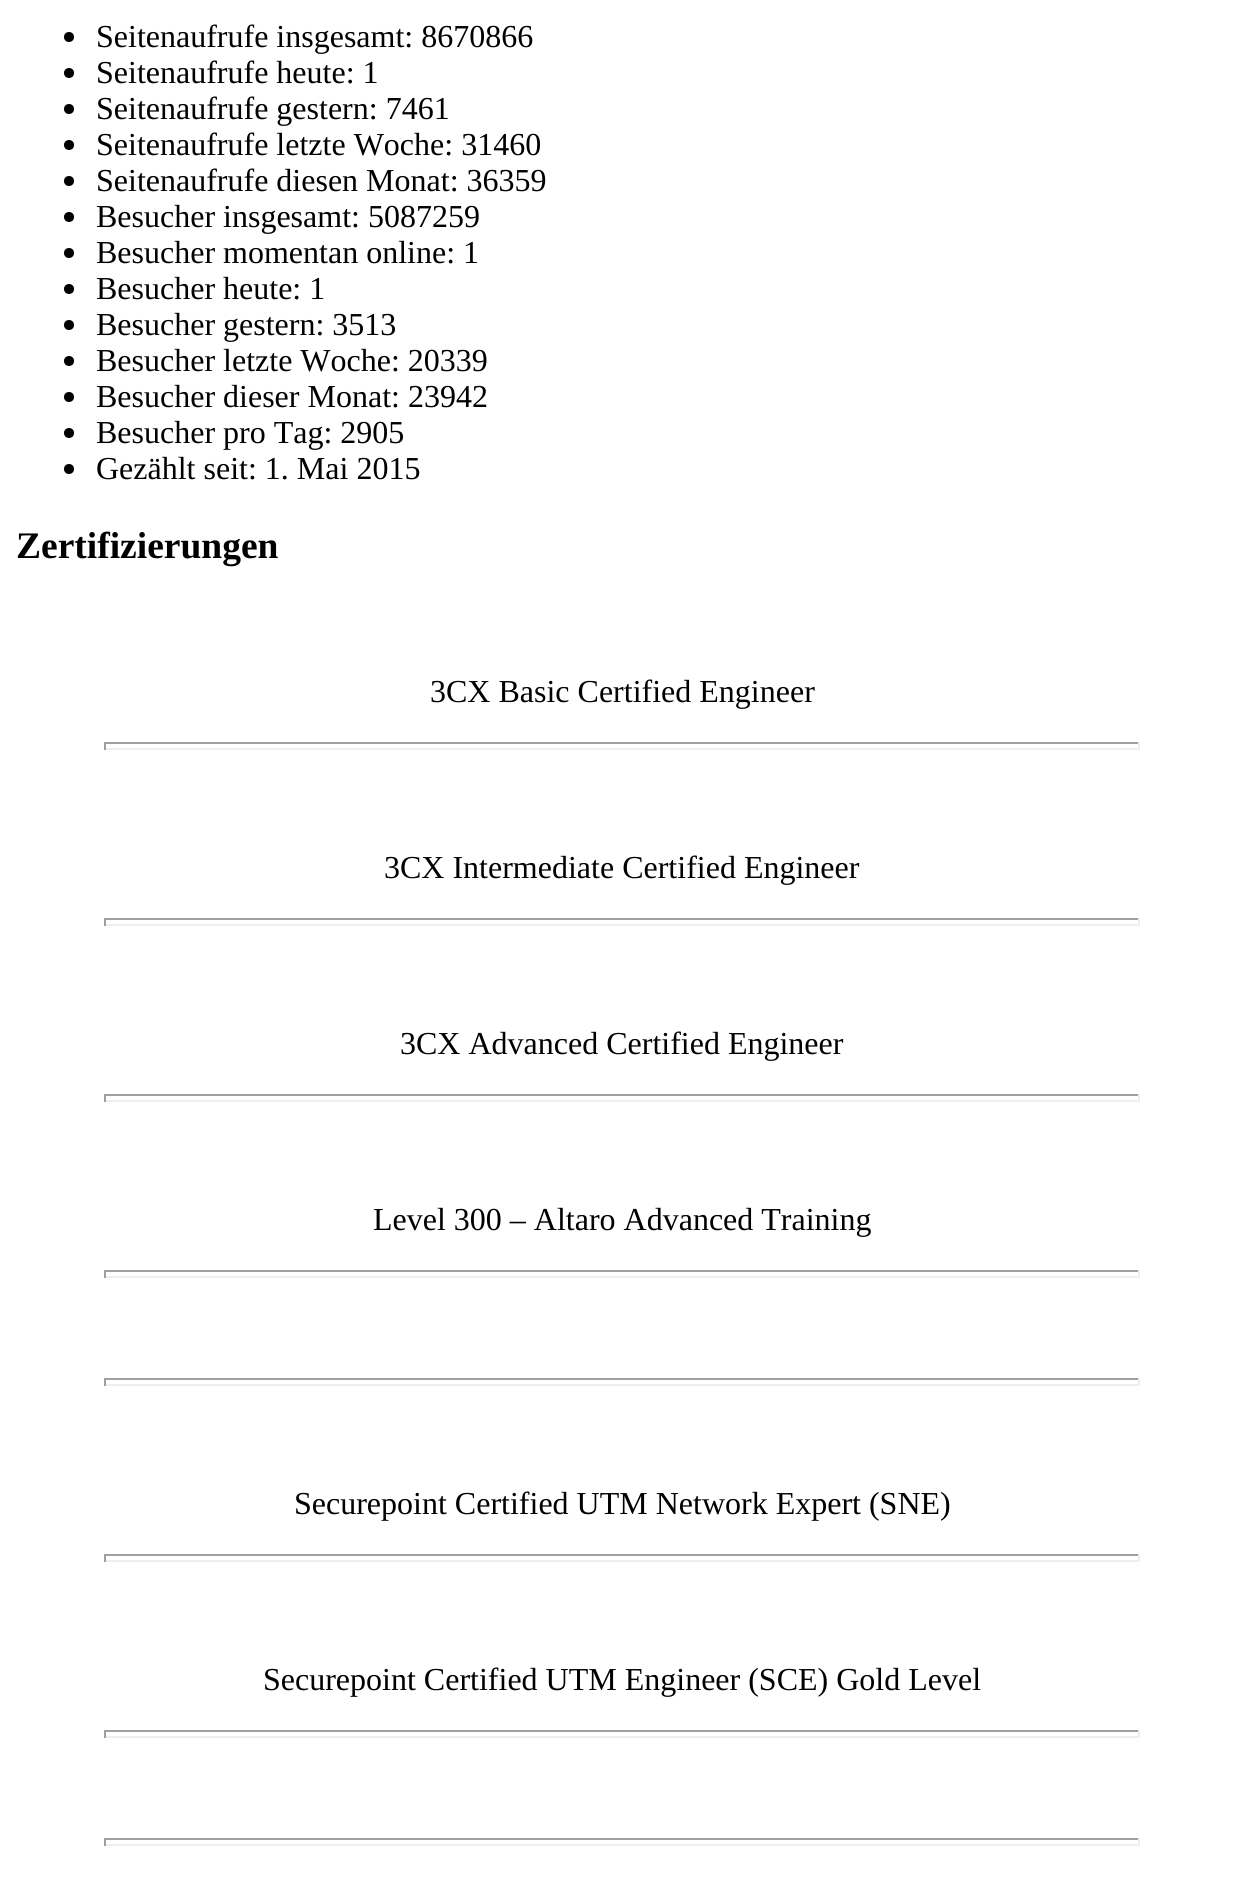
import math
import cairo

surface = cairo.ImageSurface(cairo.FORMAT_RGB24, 1244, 1891)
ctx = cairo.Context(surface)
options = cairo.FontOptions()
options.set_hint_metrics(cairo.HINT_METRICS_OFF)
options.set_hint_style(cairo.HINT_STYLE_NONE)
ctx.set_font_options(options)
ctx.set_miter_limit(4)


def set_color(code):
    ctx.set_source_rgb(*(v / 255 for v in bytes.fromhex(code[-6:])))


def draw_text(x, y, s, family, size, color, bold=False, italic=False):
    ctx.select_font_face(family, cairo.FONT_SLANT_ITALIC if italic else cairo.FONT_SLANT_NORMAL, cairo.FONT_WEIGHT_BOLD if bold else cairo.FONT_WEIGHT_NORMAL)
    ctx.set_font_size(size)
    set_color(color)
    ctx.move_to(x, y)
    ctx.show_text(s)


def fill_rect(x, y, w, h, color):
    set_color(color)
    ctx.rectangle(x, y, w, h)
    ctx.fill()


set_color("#ffffff")
ctx.paint()
set_color("#000000")
ctx.arc(69, 37, 5, 0, 2 * math.pi)
ctx.fill()
draw_text(96, 47, "Seitenaufrufe insgesamt: 8670866", "Liberation Serif", 32, "#000000")
ctx.new_path()
ctx.arc(69, 73, 5, 0, 2 * math.pi)
ctx.fill()
draw_text(96, 83, "Seitenaufrufe heute: 1", "Liberation Serif", 32, "#000000")
ctx.new_path()
ctx.arc(69, 109, 5, 0, 2 * math.pi)
ctx.fill()
draw_text(96, 119, "Seitenaufrufe gestern: 7461", "Liberation Serif", 32, "#000000")
ctx.new_path()
ctx.arc(69, 145, 5, 0, 2 * math.pi)
ctx.fill()
draw_text(96, 155, "Seitenaufrufe letzte Woche: 31460", "Liberation Serif", 32, "#000000")
ctx.new_path()
ctx.arc(69, 181, 5, 0, 2 * math.pi)
ctx.fill()
draw_text(96, 191, "Seitenaufrufe diesen Monat: 36359", "Liberation Serif", 32, "#000000")
ctx.new_path()
ctx.arc(69, 217, 5, 0, 2 * math.pi)
ctx.fill()
draw_text(96, 227, "Besucher insgesamt: 5087259", "Liberation Serif", 32, "#000000")
ctx.new_path()
ctx.arc(69, 253, 5, 0, 2 * math.pi)
ctx.fill()
draw_text(96, 263, "Besucher momentan online: 1", "Liberation Serif", 32, "#000000")
ctx.new_path()
ctx.arc(69, 289, 5, 0, 2 * math.pi)
ctx.fill()
draw_text(96, 299, "Besucher heute: 1", "Liberation Serif", 32, "#000000")
ctx.new_path()
ctx.arc(69, 325, 5, 0, 2 * math.pi)
ctx.fill()
draw_text(96, 335, "Besucher gestern: 3513", "Liberation Serif", 32, "#000000")
ctx.new_path()
ctx.arc(69, 361, 5, 0, 2 * math.pi)
ctx.fill()
draw_text(96, 371, "Besucher letzte Woche: 20339", "Liberation Serif", 32, "#000000")
ctx.new_path()
ctx.arc(69, 397, 5, 0, 2 * math.pi)
ctx.fill()
draw_text(96, 407, "Besucher dieser Monat: 23942", "Liberation Serif", 32, "#000000")
ctx.new_path()
ctx.arc(69, 433, 5, 0, 2 * math.pi)
ctx.fill()
draw_text(96, 443, "Besucher pro Tag: 2905", "Liberation Serif", 32, "#000000")
ctx.new_path()
ctx.arc(69, 469, 5, 0, 2 * math.pi)
ctx.fill()
draw_text(96, 479, "Gezählt seit: 1. Mai 2015", "Liberation Serif", 32, "#000000")
draw_text(16, 558, "Zertifizierungen", "Liberation Serif", 37.5, "#000000", bold=True)
draw_text(430, 702, "3CX Basic Certified Engineer", "Liberation Serif", 32, "#000000")
fill_rect(104, 742, 1036, 2, "#9f9f9f")
fill_rect(1138, 742, 2, 8, "#eeeeee")
fill_rect(104, 748, 1036, 2, "#eeeeee")
fill_rect(104, 742, 2, 8, "#9f9f9f")
draw_text(384, 878, "3CX Intermediate Certified Engineer", "Liberation Serif", 32, "#000000")
fill_rect(104, 918, 1036, 2, "#9f9f9f")
fill_rect(1138, 918, 2, 8, "#eeeeee")
fill_rect(104, 924, 1036, 2, "#eeeeee")
fill_rect(104, 918, 2, 8, "#9f9f9f")
draw_text(400, 1054, "3CX Advanced Certified Engineer", "Liberation Serif", 32, "#000000")
fill_rect(104, 1094, 1036, 2, "#9f9f9f")
fill_rect(1138, 1094, 2, 8, "#eeeeee")
fill_rect(104, 1100, 1036, 2, "#eeeeee")
fill_rect(104, 1094, 2, 8, "#9f9f9f")
draw_text(373, 1230, "Level 300 – Altaro Advanced Training", "Liberation Serif", 32, "#000000")
fill_rect(104, 1270, 1036, 2, "#9f9f9f")
fill_rect(1138, 1270, 2, 8, "#eeeeee")
fill_rect(104, 1276, 1036, 2, "#eeeeee")
fill_rect(104, 1270, 2, 8, "#9f9f9f")
fill_rect(104, 1378, 1036, 2, "#9f9f9f")
fill_rect(1138, 1378, 2, 8, "#eeeeee")
fill_rect(104, 1384, 1036, 2, "#eeeeee")
fill_rect(104, 1378, 2, 8, "#9f9f9f")
draw_text(294, 1514, "Securepoint Certified UTM Network Expert (SNE)", "Liberation Serif", 32, "#000000")
fill_rect(104, 1554, 1036, 2, "#9f9f9f")
fill_rect(1138, 1554, 2, 8, "#eeeeee")
fill_rect(104, 1560, 1036, 2, "#eeeeee")
fill_rect(104, 1554, 2, 8, "#9f9f9f")
draw_text(263, 1690, "Securepoint Certified UTM Engineer (SCE) Gold Level", "Liberation Serif", 32, "#000000")
fill_rect(104, 1730, 1036, 2, "#9f9f9f")
fill_rect(1138, 1730, 2, 8, "#eeeeee")
fill_rect(104, 1736, 1036, 2, "#eeeeee")
fill_rect(104, 1730, 2, 8, "#9f9f9f")
fill_rect(104, 1838, 1036, 2, "#9f9f9f")
fill_rect(1138, 1838, 2, 8, "#eeeeee")
fill_rect(104, 1844, 1036, 2, "#eeeeee")
fill_rect(104, 1838, 2, 8, "#9f9f9f")
surface.write_to_png("output.png")
